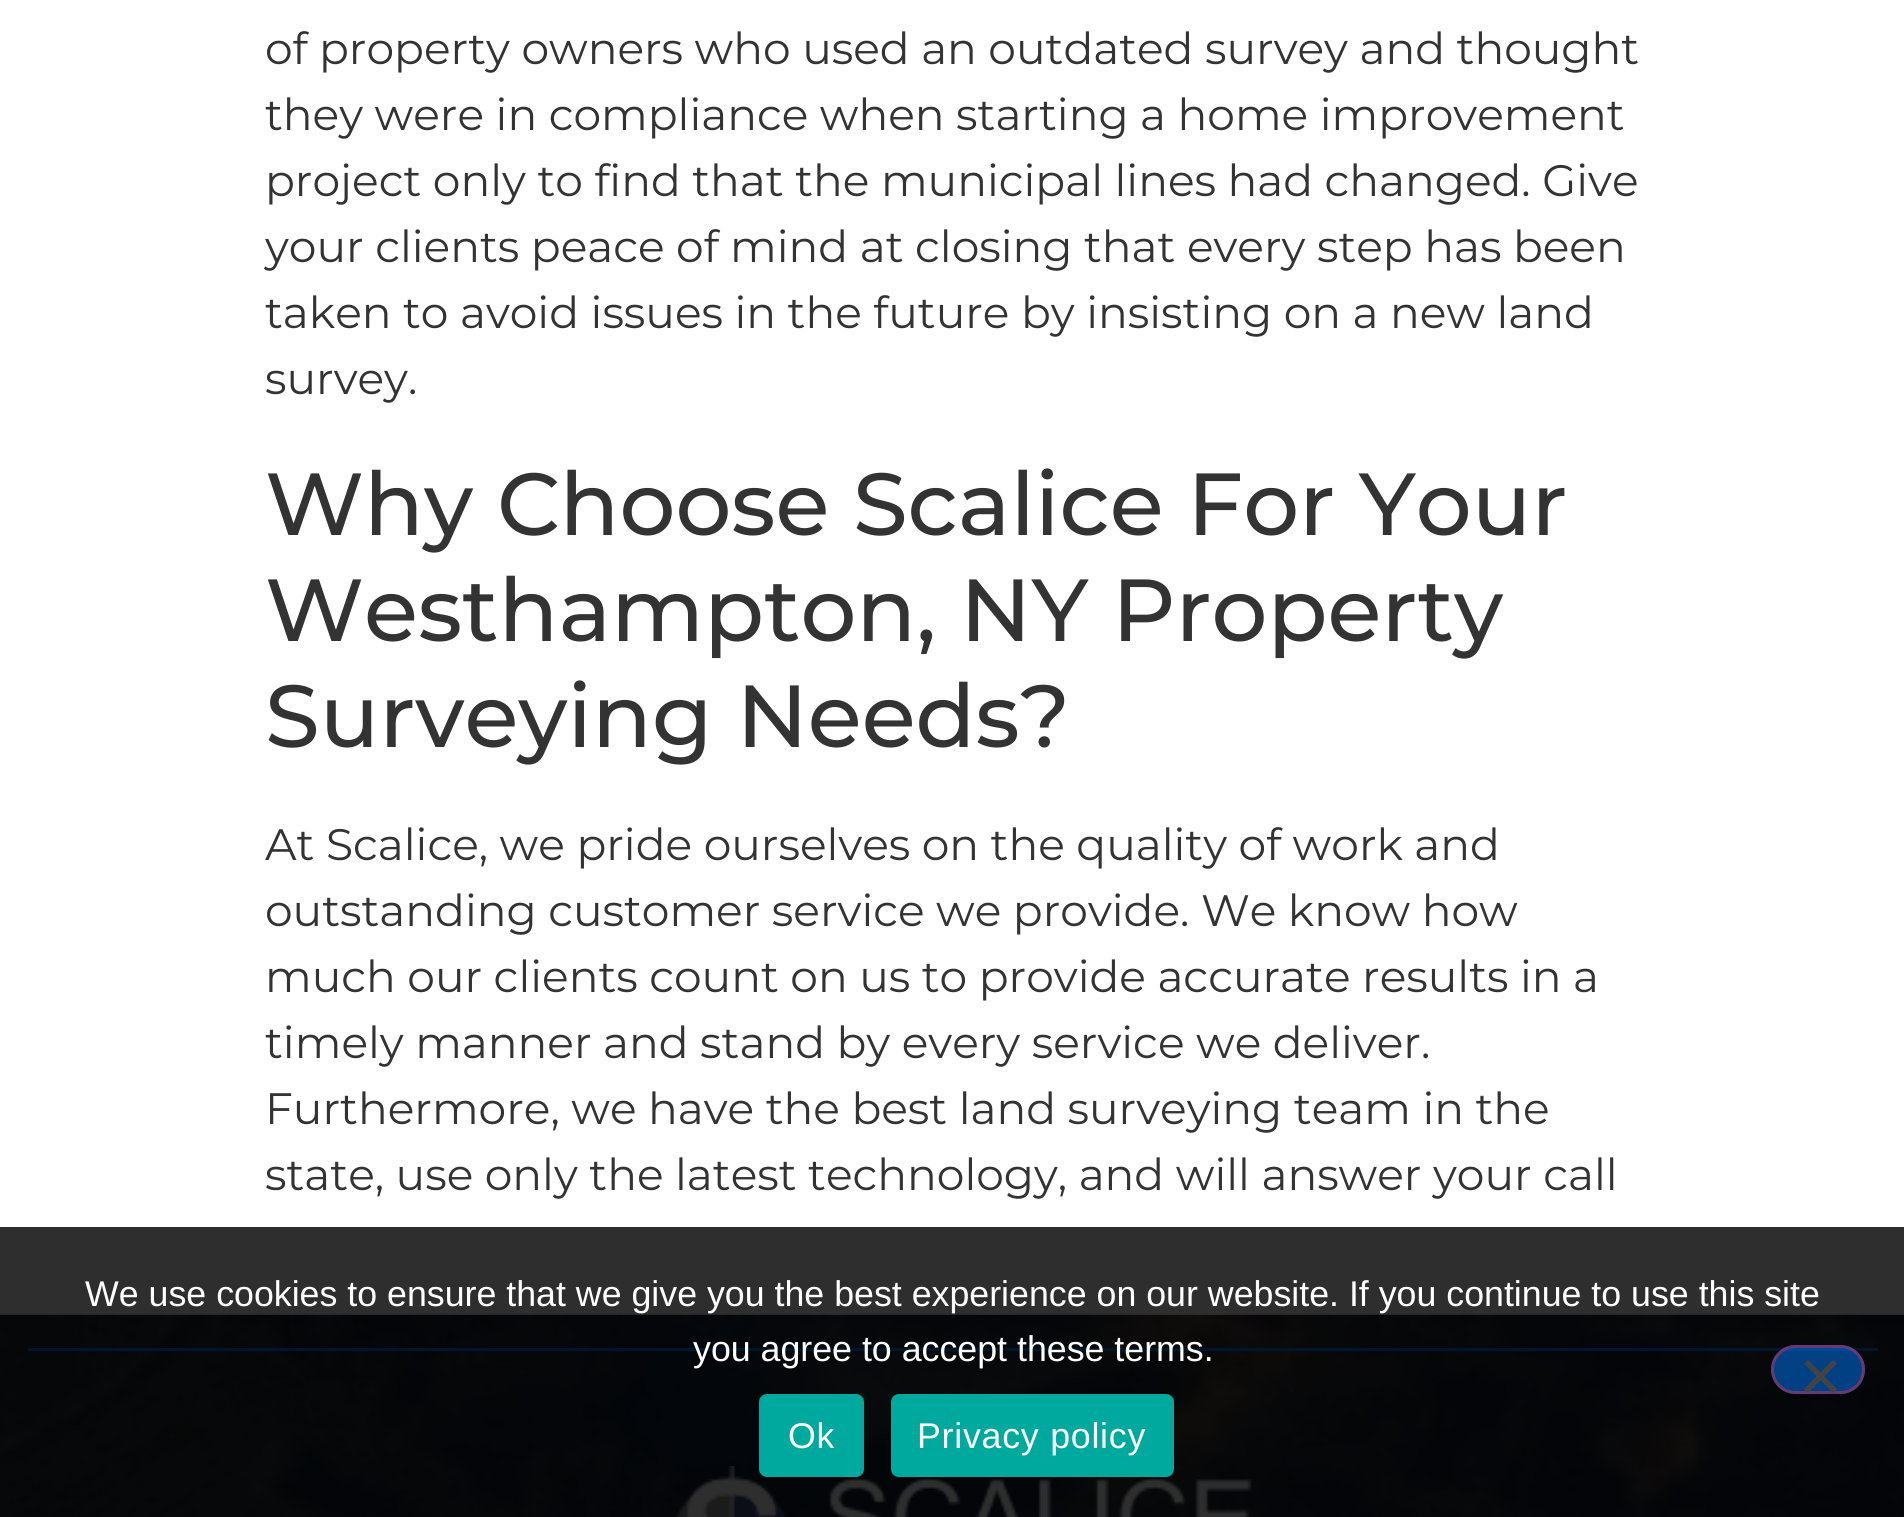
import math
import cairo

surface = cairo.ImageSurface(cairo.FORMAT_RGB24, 1904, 1517)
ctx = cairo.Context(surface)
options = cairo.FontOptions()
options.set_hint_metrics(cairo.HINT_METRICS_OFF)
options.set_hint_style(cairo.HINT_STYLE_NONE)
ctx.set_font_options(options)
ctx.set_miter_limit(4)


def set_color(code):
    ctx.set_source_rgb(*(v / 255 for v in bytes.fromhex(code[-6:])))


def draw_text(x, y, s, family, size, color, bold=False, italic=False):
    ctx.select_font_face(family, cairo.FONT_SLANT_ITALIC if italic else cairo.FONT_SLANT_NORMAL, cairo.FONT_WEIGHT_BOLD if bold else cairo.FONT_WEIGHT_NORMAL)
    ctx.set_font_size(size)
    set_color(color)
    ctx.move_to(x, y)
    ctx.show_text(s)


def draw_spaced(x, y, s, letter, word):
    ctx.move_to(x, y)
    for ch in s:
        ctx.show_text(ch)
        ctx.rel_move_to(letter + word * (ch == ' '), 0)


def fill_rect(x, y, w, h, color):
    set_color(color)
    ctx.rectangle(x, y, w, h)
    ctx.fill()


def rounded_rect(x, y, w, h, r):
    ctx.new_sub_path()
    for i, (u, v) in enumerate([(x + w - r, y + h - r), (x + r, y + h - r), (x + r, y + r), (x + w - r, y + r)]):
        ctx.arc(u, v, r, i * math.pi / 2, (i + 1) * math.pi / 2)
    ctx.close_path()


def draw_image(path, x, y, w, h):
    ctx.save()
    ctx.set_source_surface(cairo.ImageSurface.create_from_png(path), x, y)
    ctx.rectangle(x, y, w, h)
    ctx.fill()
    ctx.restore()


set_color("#ffffff")
ctx.paint()
draw_text(265, 64, "of property owners who used an outdated survey and thought", "Montserrat", 44, "#333333")
draw_text(265, 130, "they were in compliance when starting a home improvement", "Montserrat", 44, "#333333")
draw_text(265, 196, "project only to find that the municipal lines had changed. Give", "Montserrat", 44, "#333333")
draw_text(265, 262, "your clients peace of mind at closing that every step has been", "Montserrat", 44, "#333333")
draw_text(265, 328, "taken to avoid issues in the future by insisting on a new land", "Montserrat", 44, "#333333")
draw_text(265, 394, "survey.", "Montserrat", 44, "#333333")
draw_text(265, 535, "Why Choose Scalice For Your", "Montserrat Medium", 88, "#333333")
draw_text(265, 641, "Westhampton, NY Property", "Montserrat Medium", 88, "#333333")
draw_text(265, 747, "Surveying Needs?", "Montserrat Medium", 88, "#333333")
draw_text(265, 860, "At Scalice, we pride ourselves on the quality of work and", "Montserrat", 44, "#333333")
draw_text(265, 926, "outstanding customer service we provide. We know how", "Montserrat", 44, "#333333")
draw_text(265, 992, "much our clients count on us to provide accurate results in a", "Montserrat", 44, "#333333")
draw_text(265, 1058, "timely manner and stand by every service we deliver.", "Montserrat", 44, "#333333")
draw_text(265, 1124, "Furthermore, we have the best land surveying team in the", "Montserrat", 44, "#333333")
draw_text(265, 1190, "state, use only the latest technology, and will answer your call", "Montserrat", 44, "#333333")
draw_image("assets/img1.png", 0, 1314, 1904, 203)
fill_rect(28, 1348, 1850, 3, "#007bff")
draw_image("assets/img2.png", 675, 1466, 577, 51)
ctx.set_source_rgba(0, 0, 0, 0.82)
ctx.rectangle(0, 1227, 1904, 290)
ctx.fill()
draw_text(85, 1306, "We use cookies to ensure that we give you the best experience on our website. If you continue to use this site", "Liberation Sans", 35.75, "#ffffff")
draw_text(693, 1361, "you agree to accept these terms.", "Liberation Sans", 35.75, "#ffffff")
ctx.set_source_rgba(0, 0.482, 1, 0.5)
rounded_rect(1771, 1345, 94, 49, 24.5)
ctx.fill()
rounded_rect(1772.5, 1346.5, 91, 46, 23)
ctx.set_source_rgba(0.8, 0.2, 0.4, 0.5)
ctx.set_line_width(3)
ctx.stroke()
set_color("#424344")
ctx.new_path()
ctx.move_to(1833, 1360)
ctx.line_to(1837, 1363.5)
ctx.line_to(1808, 1393)
ctx.line_to(1804, 1389)
ctx.close_path()
ctx.fill()
set_color("#424345")
ctx.new_path()
ctx.move_to(1804, 1363.5)
ctx.line_to(1808, 1360)
ctx.line_to(1837, 1389)
ctx.line_to(1833, 1393)
ctx.close_path()
ctx.fill()
set_color("#00a99d")
rounded_rect(759, 1394, 105, 83, 8)
ctx.fill()
set_color("#ffffff")
draw_spaced(788, 1448, "Ok", 0.75, 0)
set_color("#00a99d")
rounded_rect(891, 1394, 283, 83, 8)
ctx.fill()
set_color("#ffffff")
draw_spaced(917, 1448, "Privacy policy", 0.75, 0)
surface.write_to_png("output.png")
